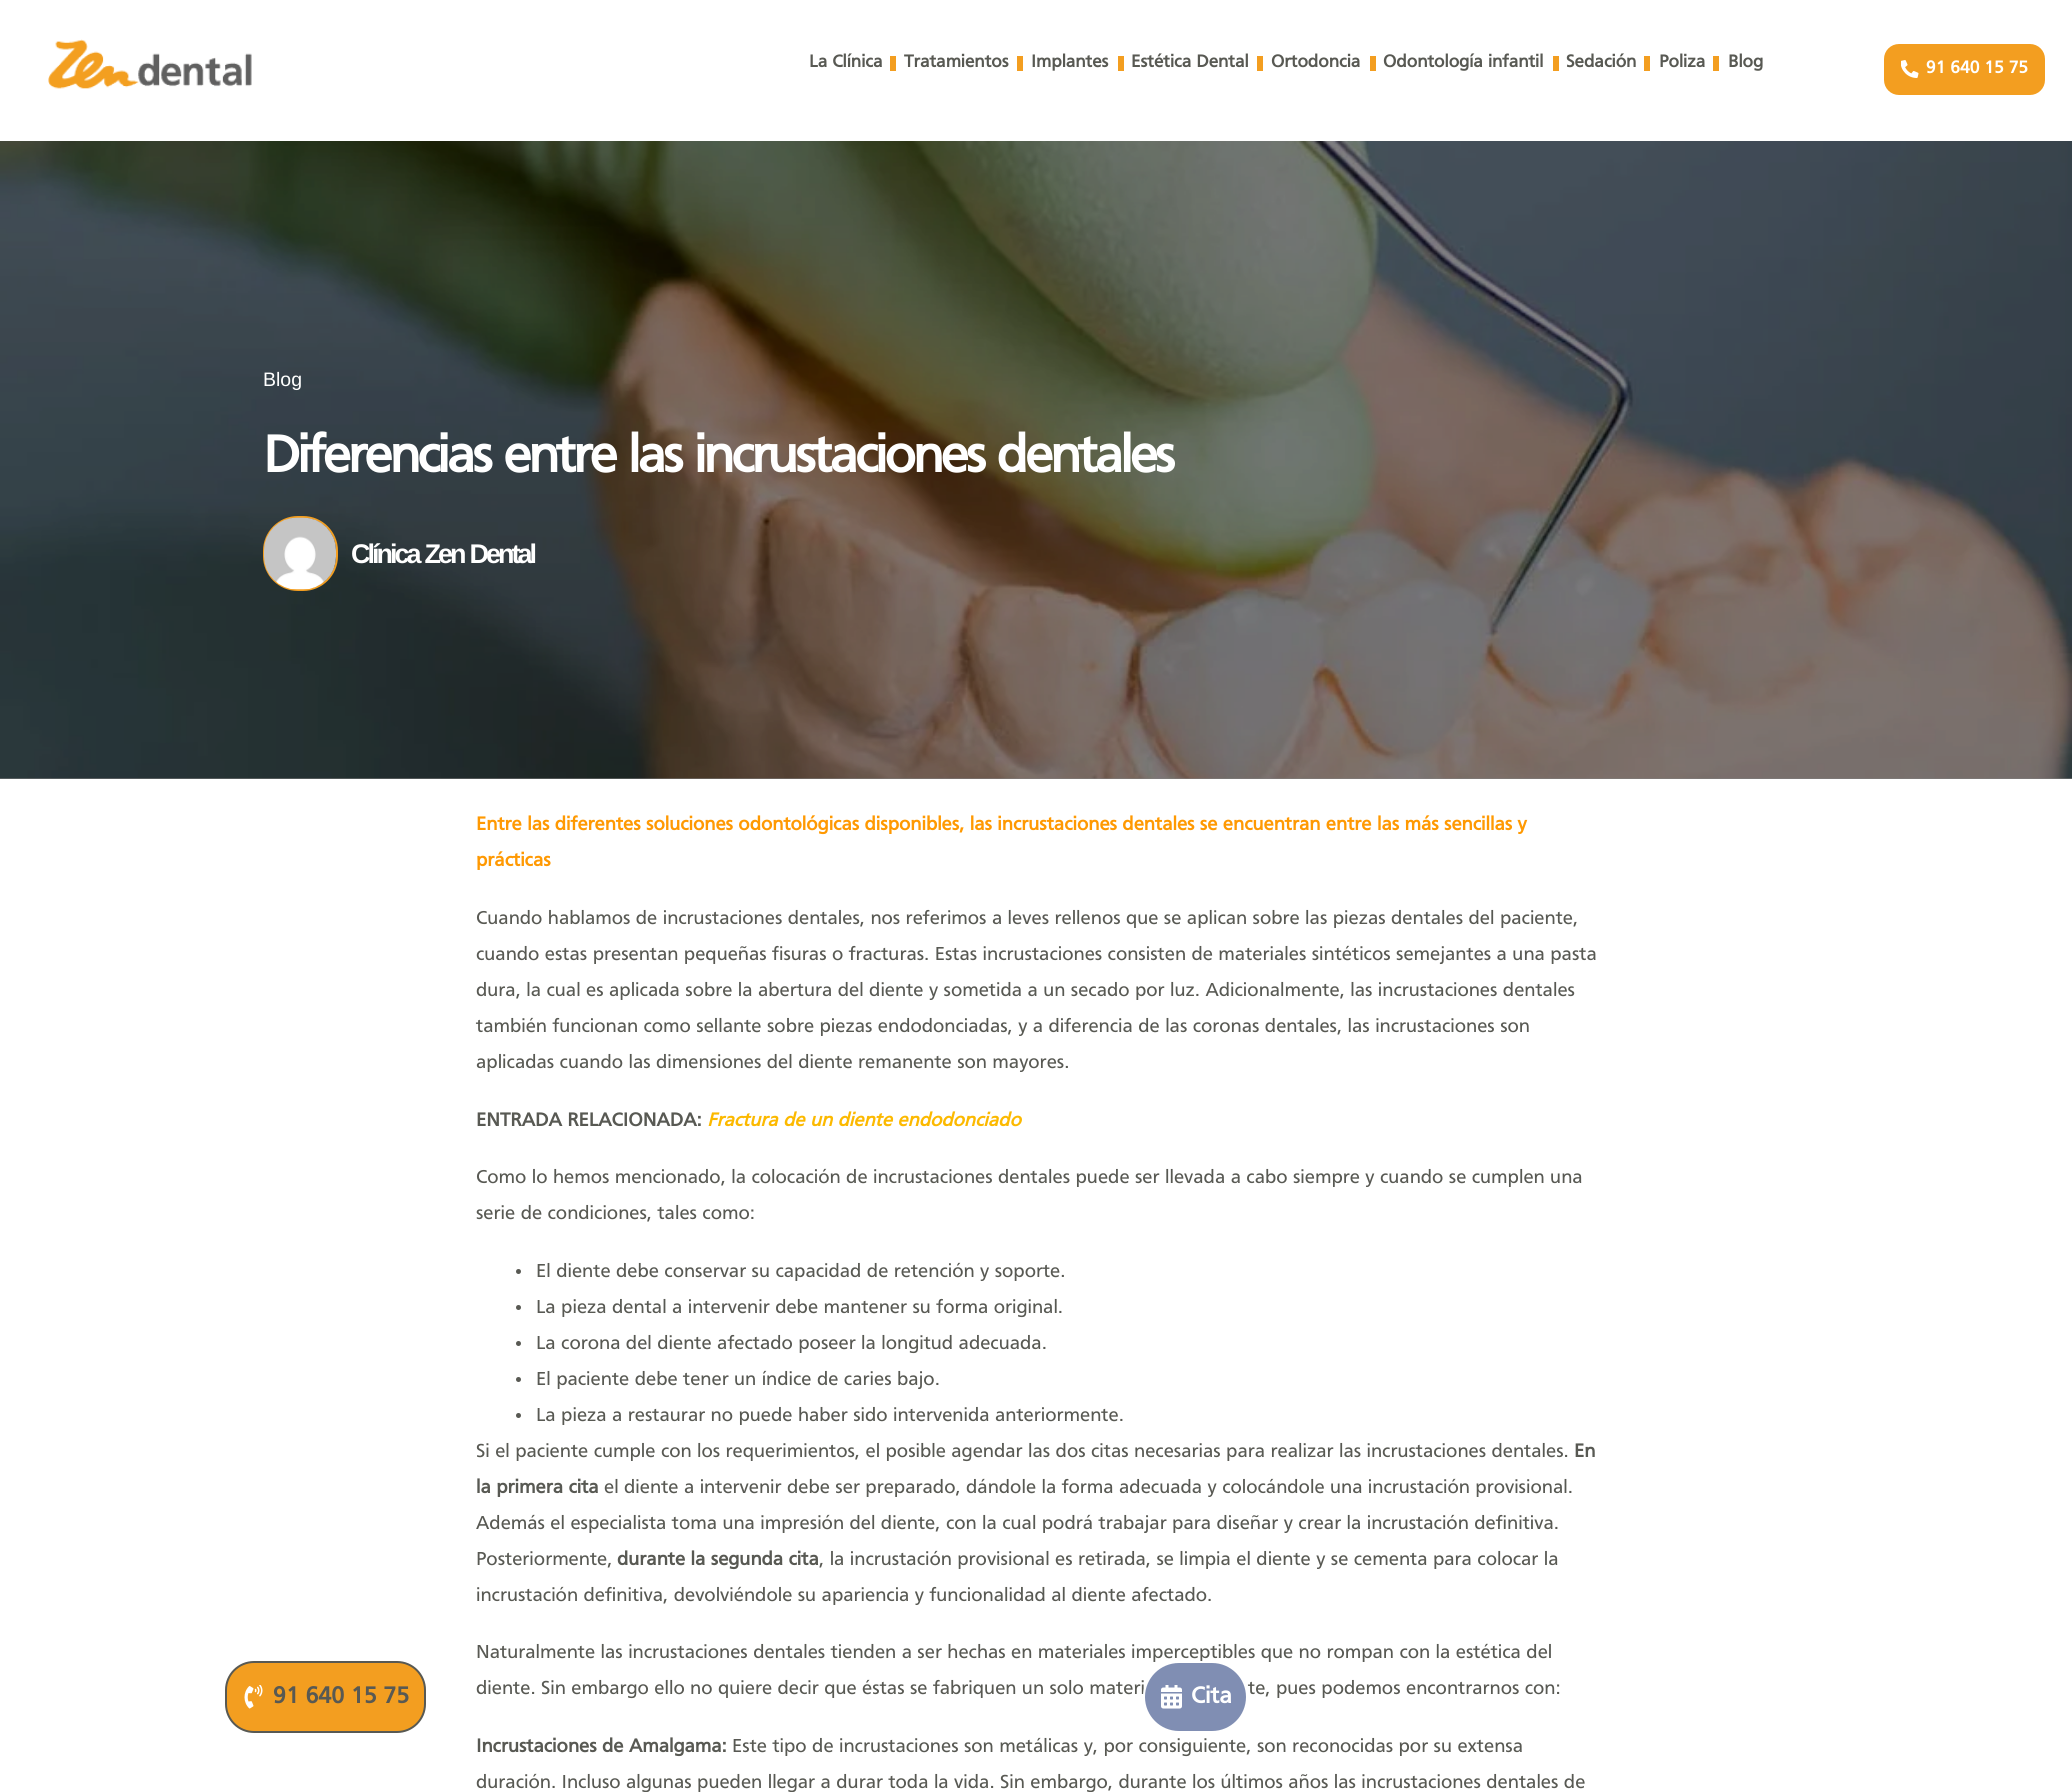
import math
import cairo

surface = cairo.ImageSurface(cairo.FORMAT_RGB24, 2072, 1792)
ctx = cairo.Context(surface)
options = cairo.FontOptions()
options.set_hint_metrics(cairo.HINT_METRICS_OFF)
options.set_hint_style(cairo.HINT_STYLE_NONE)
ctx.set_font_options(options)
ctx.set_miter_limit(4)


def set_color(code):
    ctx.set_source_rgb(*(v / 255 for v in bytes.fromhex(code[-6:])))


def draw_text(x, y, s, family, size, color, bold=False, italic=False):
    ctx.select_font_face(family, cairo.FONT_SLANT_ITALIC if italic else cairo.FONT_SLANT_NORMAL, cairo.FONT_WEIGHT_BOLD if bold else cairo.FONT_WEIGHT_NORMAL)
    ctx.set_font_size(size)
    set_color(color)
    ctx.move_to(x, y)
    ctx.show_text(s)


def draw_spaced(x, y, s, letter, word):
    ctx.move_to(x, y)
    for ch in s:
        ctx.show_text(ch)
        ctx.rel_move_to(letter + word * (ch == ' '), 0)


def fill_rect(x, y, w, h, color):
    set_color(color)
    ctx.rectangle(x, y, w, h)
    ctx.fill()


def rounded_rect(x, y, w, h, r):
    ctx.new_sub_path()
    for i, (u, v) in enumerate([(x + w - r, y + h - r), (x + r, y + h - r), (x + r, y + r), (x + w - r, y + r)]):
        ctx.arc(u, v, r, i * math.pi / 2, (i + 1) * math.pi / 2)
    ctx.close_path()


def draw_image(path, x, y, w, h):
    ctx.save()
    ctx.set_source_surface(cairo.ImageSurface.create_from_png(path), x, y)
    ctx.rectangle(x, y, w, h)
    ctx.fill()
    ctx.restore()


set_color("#ffffff")
ctx.paint()
fill_rect(0, 778, 2072, 1, "#808080")
draw_image("assets/img1.png", 48, 39, 204, 50)
draw_text(809, 67, "La Clínica", "Frutiger", 18, "#585953", bold=True)
fill_rect(890, 56, 6, 15, "#f39e20")
draw_text(904, 67, "Tratamientos", "Frutiger", 18, "#585953", bold=True)
fill_rect(1017, 56, 6, 15, "#f39e20")
draw_text(1031, 67, "Implantes", "Frutiger", 18, "#585953", bold=True)
fill_rect(1118, 56, 6, 15, "#f39e20")
draw_text(1131, 67, "Estética Dental", "Frutiger", 18, "#585953", bold=True)
fill_rect(1257, 56, 6, 15, "#f39e20")
draw_text(1271, 67, "Ortodoncia", "Frutiger", 18, "#585953", bold=True)
fill_rect(1370, 56, 6, 15, "#f39e20")
draw_text(1383, 67, "Odontología infantil", "Frutiger", 18, "#585953", bold=True)
fill_rect(1553, 56, 6, 15, "#f39e20")
draw_text(1566, 67, "Sedación", "Frutiger", 18, "#585953", bold=True)
fill_rect(1644, 56, 6, 15, "#f39e20")
draw_text(1659, 67, "Poliza", "Frutiger", 18, "#585953", bold=True)
fill_rect(1713, 56, 6, 15, "#f39e20")
draw_text(1728, 67, "Blog", "Frutiger", 18, "#585953", bold=True)
set_color("#f39e20")
rounded_rect(1885, 45, 159, 49, 14)
ctx.fill_preserve()
ctx.stroke()
draw_image("assets/img2.png", 1901, 60, 18, 18)
draw_text(1926, 73, "91 640 15 75", "Frutiger", 18, "#ffffff", bold=True)
set_color("#f39e20")
rounded_rect(226, 1662, 199, 70, 28)
ctx.fill_preserve()
set_color("#585953")
ctx.stroke()
draw_image("assets/img3.png", 244, 1685, 19, 24)
draw_text(273, 1703, "91 640 15 75", "Frutiger", 24, "#585953", bold=True)
draw_text(476, 1658, "Naturalmente las incrustaciones dentales tienden a ser hechas en materiales imperceptibles que no rompan con la estética del", "Frutiger", 19.5, "#585953")
draw_text(476, 1694, "diente. Sin embargo ello no quiere decir que éstas se fabriquen un solo materi", "Frutiger", 19.5, "#585953")
draw_text(1248, 1694, "te, pues podemos encontrarnos con:", "Frutiger", 19.5, "#585953")
set_color("#808eb3")
rounded_rect(1144, 1662, 103, 70, 35)
ctx.fill_preserve()
set_color("#ffffff")
ctx.stroke()
draw_image("assets/img4.png", 1161, 1685, 21, 24)
draw_text(1191, 1703, "Cita", "Frutiger", 24, "#ffffff", bold=True)
draw_image("assets/img5.png", 0, 141, 2072, 638)
draw_text(263, 386, "Blog", "Liberation Sans", 19.5, "#ffffff")
ctx.select_font_face("Frutiger", cairo.FONT_SLANT_NORMAL, cairo.FONT_WEIGHT_BOLD)
ctx.set_font_size(54)
draw_spaced(263, 472, "Diferencias entre las incrustaciones dentales", -3, 1.5)
rounded_rect(264, 517, 73, 73, 34)
set_color("#f39e20")
ctx.stroke()
draw_image("assets/img6.png", 264, 517, 72, 73)
ctx.select_font_face("Liberation Sans", cairo.FONT_SLANT_NORMAL, cairo.FONT_WEIGHT_BOLD)
ctx.set_font_size(27)
set_color("#ffffff")
draw_spaced(351, 563, "Clínica Zen Dental", -3, 1.5)
draw_text(476, 830, "Entre las diferentes soluciones odontológicas disponibles, las incrustaciones dentales se encuentran entre las más sencillas y", "Frutiger", 19.5, "#ff9902", bold=True)
draw_text(476, 866, "prácticas", "Frutiger", 19.5, "#ff9902", bold=True)
draw_text(476, 924, "Cuando hablamos de incrustaciones dentales, nos referimos a leves rellenos que se aplican sobre las piezas dentales del paciente,", "Frutiger", 19.5, "#585953")
draw_text(476, 960, "cuando estas presentan pequeñas fisuras o fracturas. Estas incrustaciones consisten de materiales sintéticos semejantes a una pasta", "Frutiger", 19.5, "#585953")
draw_text(476, 996, "dura, la cual es aplicada sobre la abertura del diente y sometida a un secado por luz. Adicionalmente, las incrustaciones dentales", "Frutiger", 19.5, "#585953")
draw_text(476, 1032, "también funcionan como sellante sobre piezas endodonciadas, y a diferencia de las coronas dentales, las incrustaciones son", "Frutiger", 19.5, "#585953")
draw_text(476, 1068, "aplicadas cuando las dimensiones del diente remanente son mayores.", "Frutiger", 19.5, "#585953")
draw_text(476, 1126, "ENTRADA RELACIONADA:", "Frutiger", 19.5, "#585953", bold=True)
draw_text(707, 1126, "Fractura de un diente endodonciado", "Frutiger", 19.5, "#fcb900", bold=True, italic=True)
draw_text(476, 1183, "Como lo hemos mencionado, la colocación de incrustaciones dentales puede ser llevada a cabo siempre y cuando se cumplen una", "Frutiger", 19.5, "#585953")
draw_text(476, 1219, "serie de condiciones, tales como:", "Frutiger", 19.5, "#585953")
ctx.new_path()
ctx.arc(518.5, 1271.5, 2.5, 0, 2 * math.pi)
ctx.fill()
draw_text(536, 1277, "El diente debe conservar su capacidad de retención y soporte.", "Frutiger", 19.5, "#585953")
ctx.new_path()
ctx.arc(518.5, 1307.5, 2.5, 0, 2 * math.pi)
ctx.fill()
draw_text(536, 1313, "La pieza dental a intervenir debe mantener su forma original.", "Frutiger", 19.5, "#585953")
ctx.new_path()
ctx.arc(518.5, 1343.5, 2.5, 0, 2 * math.pi)
ctx.fill()
draw_text(536, 1349, "La corona del diente afectado poseer la longitud adecuada.", "Frutiger", 19.5, "#585953")
ctx.new_path()
ctx.arc(518.5, 1379.5, 2.5, 0, 2 * math.pi)
ctx.fill()
draw_text(536, 1385, "El paciente debe tener un índice de caries bajo.", "Frutiger", 19.5, "#585953")
ctx.new_path()
ctx.arc(518.5, 1415.5, 2.5, 0, 2 * math.pi)
ctx.fill()
draw_text(536, 1421, "La pieza a restaurar no puede haber sido intervenida anteriormente.", "Frutiger", 19.5, "#585953")
draw_text(476, 1457, "Si el paciente cumple con los requerimientos, el posible agendar las dos citas necesarias para realizar las incrustaciones dentales.", "Frutiger", 19.5, "#585953")
draw_text(1574, 1457, "En", "Frutiger", 19.5, "#585953", bold=True)
draw_text(476, 1493, "la primera cita", "Frutiger", 19.5, "#585953", bold=True)
draw_text(604, 1493, "el diente a intervenir debe ser preparado, dándole la forma adecuada y colocándole una incrustación provisional.", "Frutiger", 19.5, "#585953")
draw_text(476, 1529, "Además el especialista toma una impresión del diente, con la cual podrá trabajar para diseñar y crear la incrustación definitiva.", "Frutiger", 19.5, "#585953")
draw_text(476, 1565, "Posteriormente,", "Frutiger", 19.5, "#585953")
draw_text(617, 1565, "durante la segunda cita", "Frutiger", 19.5, "#585953", bold=True)
draw_text(819, 1565, ", la incrustación provisional es retirada, se limpia el diente y se cementa para colocar la", "Frutiger", 19.5, "#585953")
draw_text(476, 1601, "incrustación definitiva, devolviéndole su apariencia y funcionalidad al diente afectado.", "Frutiger", 19.5, "#585953")
draw_text(476, 1752, "Incrustaciones de Amalgama:", "Frutiger", 19.5, "#585953", bold=True)
draw_text(732, 1752, "Este tipo de incrustaciones son metálicas y, por consiguiente, son reconocidas por su extensa", "Frutiger", 19.5, "#585953")
draw_text(476, 1788, "duración. Incluso algunas pueden llegar a durar toda la vida. Sin embargo, durante los últimos años las incrustaciones dentales de", "Frutiger", 19.5, "#585953")
surface.write_to_png("output.png")
